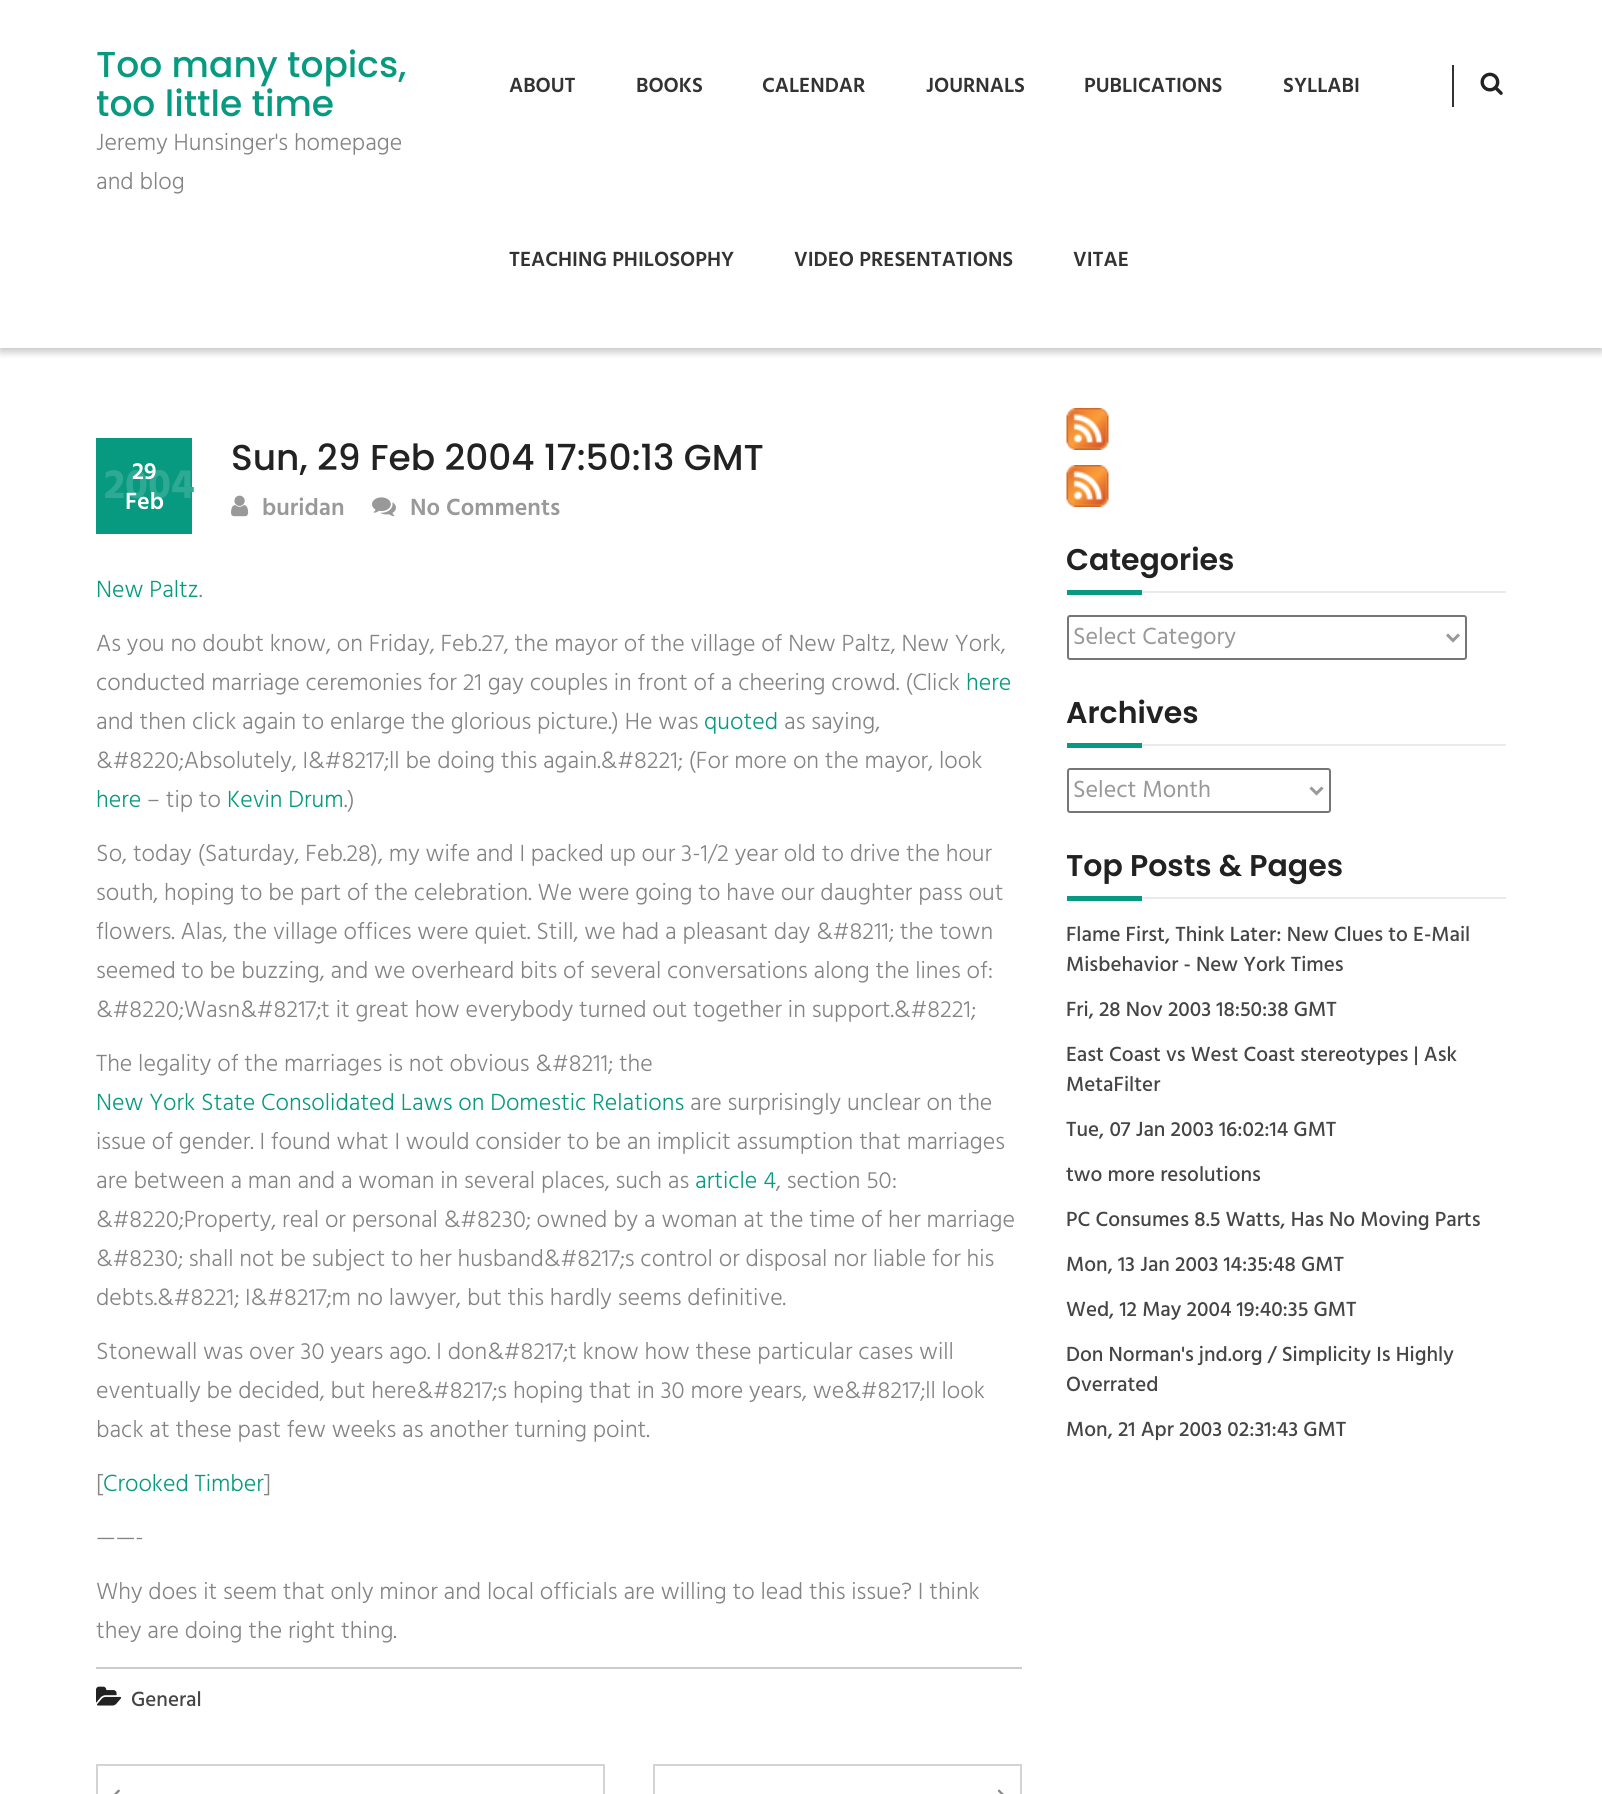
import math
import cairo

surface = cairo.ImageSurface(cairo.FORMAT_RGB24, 1602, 1794)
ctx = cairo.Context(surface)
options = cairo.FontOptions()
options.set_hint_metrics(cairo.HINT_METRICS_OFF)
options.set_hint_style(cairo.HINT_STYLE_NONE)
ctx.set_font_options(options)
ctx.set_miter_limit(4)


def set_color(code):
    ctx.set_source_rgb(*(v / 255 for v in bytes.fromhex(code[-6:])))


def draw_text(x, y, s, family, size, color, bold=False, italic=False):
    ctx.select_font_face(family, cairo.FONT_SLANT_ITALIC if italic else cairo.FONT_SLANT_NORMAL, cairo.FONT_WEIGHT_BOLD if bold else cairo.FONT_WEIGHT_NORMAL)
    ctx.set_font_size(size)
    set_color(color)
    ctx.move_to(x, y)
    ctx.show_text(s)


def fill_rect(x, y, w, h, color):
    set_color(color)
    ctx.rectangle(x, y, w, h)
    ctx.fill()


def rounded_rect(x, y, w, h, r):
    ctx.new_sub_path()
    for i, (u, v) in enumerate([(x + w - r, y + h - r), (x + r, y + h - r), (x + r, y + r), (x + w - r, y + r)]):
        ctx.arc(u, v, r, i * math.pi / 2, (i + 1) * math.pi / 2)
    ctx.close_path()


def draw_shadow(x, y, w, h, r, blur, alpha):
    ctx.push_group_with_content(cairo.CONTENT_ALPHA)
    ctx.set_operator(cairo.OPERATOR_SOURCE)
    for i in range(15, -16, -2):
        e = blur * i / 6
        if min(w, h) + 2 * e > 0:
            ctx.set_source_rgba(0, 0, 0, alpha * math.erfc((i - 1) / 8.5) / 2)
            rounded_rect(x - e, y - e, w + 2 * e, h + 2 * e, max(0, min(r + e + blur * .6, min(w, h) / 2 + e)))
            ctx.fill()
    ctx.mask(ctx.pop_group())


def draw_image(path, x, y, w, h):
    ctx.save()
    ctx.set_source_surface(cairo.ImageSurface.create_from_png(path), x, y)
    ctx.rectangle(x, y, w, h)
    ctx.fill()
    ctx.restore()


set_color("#ffffff")
ctx.paint()
ctx.save()
ctx.rectangle(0, 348, 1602, 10)
ctx.clip()
set_color("#000000")
draw_shadow(0, 3, 1602, 348, 0, 7.5, 0.12)
ctx.restore()
ctx.save()
ctx.rectangle(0, 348, 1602, 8)
ctx.clip()
set_color("#000000")
draw_shadow(0, 3, 1602, 348, 0, 4, 0.16)
ctx.restore()
draw_text(96, 77, "Too many topics,", "Poppins Medium", 36, "#079a80")
draw_text(96, 116, "too little time", "Poppins Medium", 36, "#079a80")
draw_text(96, 150, "Jeremy Hunsinger's homepage", "Hind Light", 24, "#848484")
draw_text(96, 189, "and blog", "Hind Light", 24, "#848484")
draw_text(509, 92, "ABOUT", "Hind SemiBold", 21, "#333333")
draw_text(636, 92, "BOOKS", "Hind SemiBold", 21, "#333333")
draw_text(762, 92, "CALENDAR", "Hind SemiBold", 21, "#333333")
draw_text(926, 92, "JOURNALS", "Hind SemiBold", 21, "#333333")
draw_text(1084, 92, "PUBLICATIONS", "Hind SemiBold", 21, "#333333")
draw_text(1283, 92, "SYLLABI", "Hind SemiBold", 21, "#333333")
draw_text(509, 266, "TEACHING PHILOSOPHY", "Hind SemiBold", 21, "#333333")
draw_text(794, 266, "VIDEO PRESENTATIONS", "Hind SemiBold", 21, "#333333")
draw_text(1073, 266, "VITAE", "Hind SemiBold", 21, "#333333")
fill_rect(1452, 65, 2, 42, "#333333")
draw_image("assets/img1.png", 1480, 72, 23, 23)
draw_text(231, 470, "Sun, 29 Feb 2004 17:50:13 GMT", "Poppins Medium", 36, "#222222")
fill_rect(96, 438, 96, 96, "#079a80")
draw_text(104, 498, "2004", "Hind", 42, "#2eaa94", bold=True)
draw_text(132, 479, "29", "Hind SemiBold", 24, "#ffffff")
draw_text(125, 509, "Feb", "Hind SemiBold", 24, "#ffffff")
draw_image("assets/img2.png", 231, 495, 18, 22)
draw_text(262, 515, "buridan", "Hind SemiBold", 24, "#999999")
draw_image("assets/img3.png", 372, 497, 24, 20)
draw_text(410, 515, "No Comments", "Hind SemiBold", 24, "#999999")
draw_text(96, 597, "New Paltz", "Hind Light", 24, "#079a80")
draw_text(199, 597, ".", "Hind Light", 24, "#848484")
draw_text(96, 651, "As you no doubt know, on Friday, Feb.27, the mayor of the village of New Paltz, New York,", "Hind Light", 24, "#848484")
draw_text(96, 690, "conducted marriage ceremonies for 21 gay couples in front of a cheering crowd. (Click", "Hind Light", 24, "#848484")
draw_text(966, 690, "here", "Hind Light", 24, "#079a80")
draw_text(96, 729, "and then click again to enlarge the glorious picture.) He was", "Hind Light", 24, "#848484")
draw_text(704, 729, "quoted", "Hind Light", 24, "#079a80")
draw_text(784, 729, "as saying,", "Hind Light", 24, "#848484")
draw_text(96, 768, "&#8220;Absolutely, I&#8217;ll be doing this again.&#8221; (For more on the mayor, look", "Hind Light", 24, "#848484")
draw_text(96, 807, "here", "Hind Light", 24, "#079a80")
draw_text(147, 807, "– tip to", "Hind Light", 24, "#848484")
draw_text(227, 807, "Kevin Drum", "Hind Light", 24, "#079a80")
draw_text(344, 807, ".)", "Hind Light", 24, "#848484")
draw_text(96, 861, "So, today (Saturday, Feb.28), my wife and I packed up our 3-1/2 year old to drive the hour", "Hind Light", 24, "#848484")
draw_text(96, 900, "south, hoping to be part of the celebration. We were going to have our daughter pass out", "Hind Light", 24, "#848484")
draw_text(96, 939, "flowers. Alas, the village offices were quiet. Still, we had a pleasant day &#8211; the town", "Hind Light", 24, "#848484")
draw_text(96, 978, "seemed to be buzzing, and we overheard bits of several conversations along the lines of:", "Hind Light", 24, "#848484")
draw_text(96, 1017, "&#8220;Wasn&#8217;t it great how everybody turned out together in support.&#8221;", "Hind Light", 24, "#848484")
draw_text(96, 1071, "The legality of the marriages is not obvious &#8211; the", "Hind Light", 24, "#848484")
draw_text(96, 1110, "New York State Consolidated Laws on Domestic Relations", "Hind Light", 24, "#079a80")
draw_text(690, 1110, "are surprisingly unclear on the", "Hind Light", 24, "#848484")
draw_text(96, 1149, "issue of gender. I found what I would consider to be an implicit assumption that marriages", "Hind Light", 24, "#848484")
draw_text(96, 1188, "are between a man and a woman in several places, such as", "Hind Light", 24, "#848484")
draw_text(695, 1188, "article 4", "Hind Light", 24, "#079a80")
draw_text(776, 1188, ", section 50:", "Hind Light", 24, "#848484")
draw_text(96, 1227, "&#8220;Property, real or personal &#8230; owned by a woman at the time of her marriage", "Hind Light", 24, "#848484")
draw_text(96, 1266, "&#8230; shall not be subject to her husband&#8217;s control or disposal nor liable for his", "Hind Light", 24, "#848484")
draw_text(96, 1305, "debts.&#8221; I&#8217;m no lawyer, but this hardly seems definitive.", "Hind Light", 24, "#848484")
draw_text(96, 1359, "Stonewall was over 30 years ago. I don&#8217;t know how these particular cases will", "Hind Light", 24, "#848484")
draw_text(96, 1398, "eventually be decided, but here&#8217;s hoping that in 30 more years, we&#8217;ll look", "Hind Light", 24, "#848484")
draw_text(96, 1437, "back at these past few weeks as another turning point.", "Hind Light", 24, "#848484")
draw_text(96, 1491, "[", "Hind Light", 24, "#848484")
draw_text(103, 1491, "Crooked Timber", "Hind Light", 24, "#079a80")
draw_text(264, 1491, "]", "Hind Light", 24, "#848484")
draw_text(96, 1545, "——-", "Hind Light", 24, "#848484")
draw_text(96, 1599, "Why does it seem that only minor and local officials are willing to lead this issue? I think", "Hind Light", 24, "#848484")
draw_text(96, 1638, "they are doing the right thing.", "Hind Light", 24, "#848484")
fill_rect(96, 1667, 926, 2, "#cccccc")
draw_image("assets/img4.png", 96, 1686, 26, 20)
draw_text(131, 1706, "General", "Hind Medium", 21, "#454545")
ctx.rectangle(97, 1765, 507, 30)
set_color("#d4d4d4")
ctx.stroke()
draw_image("assets/img5.png", 114, 1789, 6, 5)
ctx.rectangle(654, 1765, 367, 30)
ctx.stroke()
draw_image("assets/img6.png", 997, 1789, 7, 5)
draw_image("assets/img7.png", 1066, 408, 43, 42)
draw_image("assets/img7.png", 1066, 465, 43, 42)
fill_rect(1142, 591, 364, 2, "#eaeaea")
draw_text(1066, 570, "Categories", "Poppins SemiBold", 30, "#222222")
fill_rect(1067, 590, 75, 5, "#079a80")
rounded_rect(1068, 616, 398, 43, 2)
set_color("#767676")
ctx.stroke()
ctx.new_path()
ctx.move_to(1447, 634.5)
ctx.line_to(1453, 640.5)
ctx.line_to(1459, 634.5)
set_color("#999999")
ctx.set_line_width(3)
ctx.stroke()
draw_text(1073, 644, "Select Category", "Hind", 24, "#999999")
fill_rect(1142, 744, 364, 2, "#eaeaea")
draw_text(1066, 723, "Archives", "Poppins SemiBold", 30, "#222222")
fill_rect(1067, 743, 75, 5, "#079a80")
rounded_rect(1068, 769, 262, 43, 2)
set_color("#767676")
ctx.set_line_width(2)
ctx.stroke()
ctx.new_path()
ctx.move_to(1310.5, 787.5)
ctx.line_to(1316.5, 793.5)
ctx.line_to(1322.5, 787.5)
set_color("#999999")
ctx.set_line_width(3)
ctx.stroke()
draw_text(1073, 797, "Select Month", "Hind", 24, "#999999")
fill_rect(1142, 897, 364, 2, "#eaeaea")
draw_text(1066, 876, "Top Posts & Pages", "Poppins SemiBold", 30, "#222222")
fill_rect(1067, 896, 75, 5, "#079a80")
draw_text(1066, 941, "Flame First, Think Later: New Clues to E-Mail", "Hind Medium", 21, "#454545")
draw_text(1066, 971, "Misbehavior - New York Times", "Hind Medium", 21, "#454545")
draw_text(1066, 1016, "Fri, 28 Nov 2003 18:50:38 GMT", "Hind Medium", 21, "#454545")
draw_text(1066, 1061, "East Coast vs West Coast stereotypes | Ask", "Hind Medium", 21, "#454545")
draw_text(1066, 1091, "MetaFilter", "Hind Medium", 21, "#454545")
draw_text(1066, 1136, "Tue, 07 Jan 2003 16:02:14 GMT", "Hind Medium", 21, "#454545")
draw_text(1066, 1181, "two more resolutions", "Hind Medium", 21, "#454545")
draw_text(1066, 1226, "PC Consumes 8.5 Watts, Has No Moving Parts", "Hind Medium", 21, "#454545")
draw_text(1066, 1271, "Mon, 13 Jan 2003 14:35:48 GMT", "Hind Medium", 21, "#454545")
draw_text(1066, 1316, "Wed, 12 May 2004 19:40:35 GMT", "Hind Medium", 21, "#454545")
draw_text(1066, 1361, "Don Norman's jnd.org / Simplicity Is Highly", "Hind Medium", 21, "#454545")
draw_text(1066, 1391, "Overrated", "Hind Medium", 21, "#454545")
draw_text(1066, 1436, "Mon, 21 Apr 2003 02:31:43 GMT", "Hind Medium", 21, "#454545")
surface.write_to_png("output.png")
